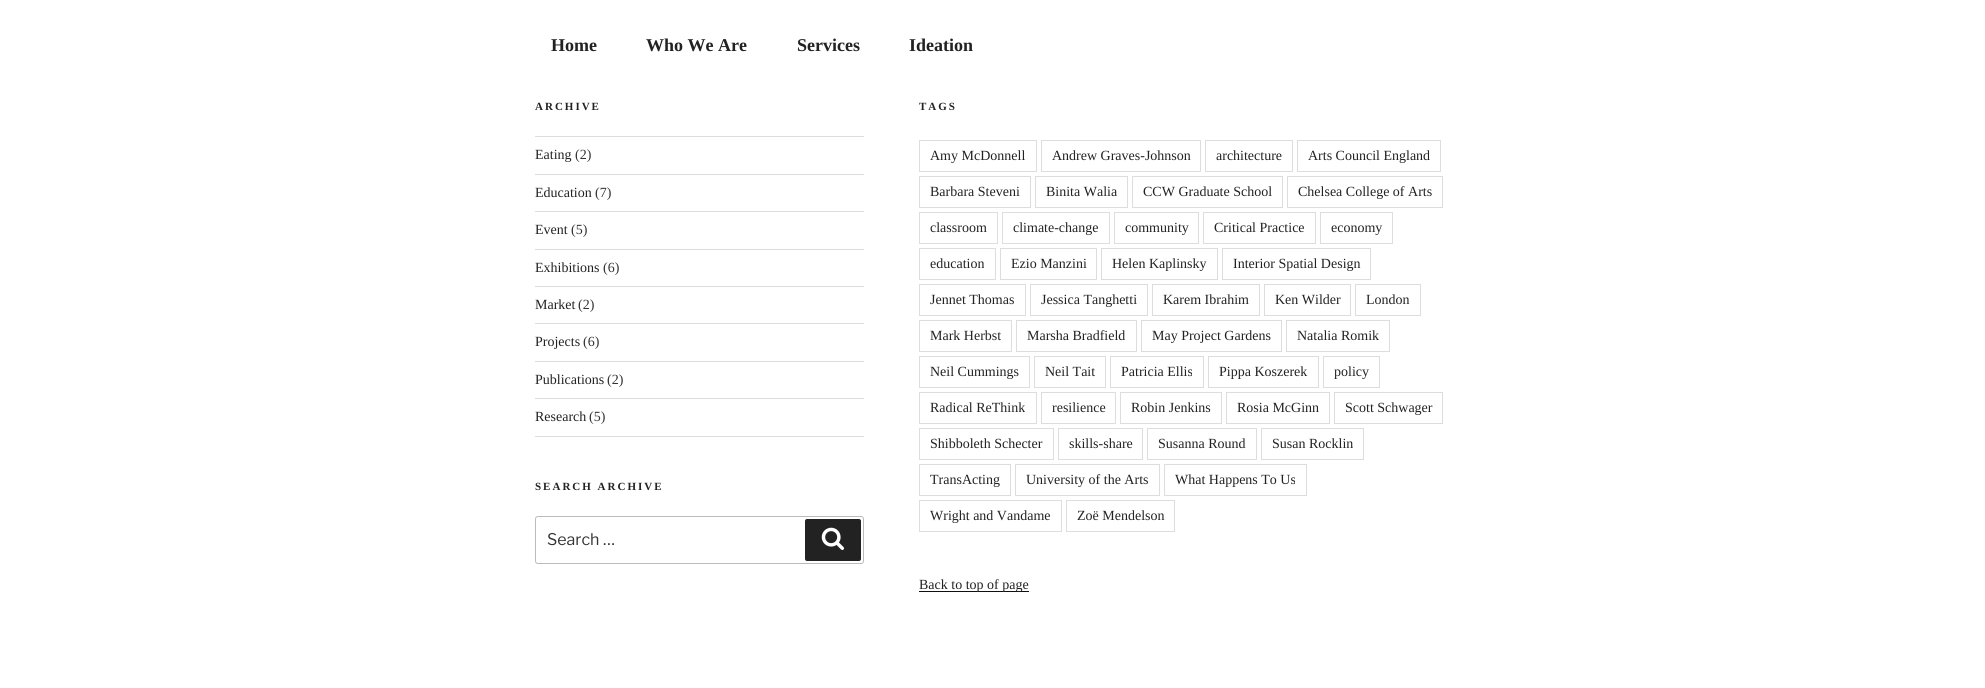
import math
import cairo

surface = cairo.ImageSurface(cairo.FORMAT_RGB24, 1985, 688)
ctx = cairo.Context(surface)
options = cairo.FontOptions()
options.set_hint_metrics(cairo.HINT_METRICS_OFF)
options.set_hint_style(cairo.HINT_STYLE_NONE)
ctx.set_font_options(options)
ctx.set_miter_limit(4)


def set_color(code):
    ctx.set_source_rgb(*(v / 255 for v in bytes.fromhex(code[-6:])))


def draw_text(x, y, s, family, size, color, bold=False, italic=False):
    ctx.select_font_face(family, cairo.FONT_SLANT_ITALIC if italic else cairo.FONT_SLANT_NORMAL, cairo.FONT_WEIGHT_BOLD if bold else cairo.FONT_WEIGHT_NORMAL)
    ctx.set_font_size(size)
    set_color(color)
    ctx.move_to(x, y)
    ctx.show_text(s)


def draw_spaced(x, y, s, letter, word):
    ctx.move_to(x, y)
    for ch in s:
        ctx.show_text(ch)
        ctx.rel_move_to(letter + word * (ch == ' '), 0)


def fill_rect(x, y, w, h, color):
    set_color(color)
    ctx.rectangle(x, y, w, h)
    ctx.fill()


def rounded_rect(x, y, w, h, r):
    ctx.new_sub_path()
    for i, (u, v) in enumerate([(x + w - r, y + h - r), (x + r, y + h - r), (x + r, y + r), (x + w - r, y + r)]):
        ctx.arc(u, v, r, i * math.pi / 2, (i + 1) * math.pi / 2)
    ctx.close_path()


def draw_image(path, x, y, w, h):
    ctx.save()
    ctx.set_source_surface(cairo.ImageSurface.create_from_png(path), x, y)
    ctx.rectangle(x, y, w, h)
    ctx.fill()
    ctx.restore()


set_color("#ffffff")
ctx.paint()
draw_text(551, 51, "Home", "Liberation Serif", 18, "#222222", bold=True)
draw_text(646, 51, "Who We Are", "Liberation Serif", 18, "#222222", bold=True)
draw_text(797, 51, "Services", "Liberation Serif", 18, "#222222", bold=True)
draw_text(909, 51, "Ideation", "Liberation Serif", 18, "#222222", bold=True)
ctx.set_font_size(11)
draw_spaced(535, 110, "ARCHIVE", 2, 0)
fill_rect(535, 136, 329, 1, "#dddddd")
fill_rect(535, 174, 329, 1, "#dddddd")
draw_text(535, 159, "Eating", "Liberation Serif", 14, "#222222")
draw_text(575, 159, "(2)", "Liberation Serif", 14, "#333333")
fill_rect(535, 211, 329, 1, "#dddddd")
draw_text(535, 197, "Education", "Liberation Serif", 14, "#222222")
draw_text(595, 197, "(7)", "Liberation Serif", 14, "#333333")
fill_rect(535, 249, 329, 1, "#dddddd")
draw_text(535, 234, "Event", "Liberation Serif", 14, "#222222")
draw_text(571, 234, "(5)", "Liberation Serif", 14, "#333333")
fill_rect(535, 286, 329, 1, "#dddddd")
draw_text(535, 272, "Exhibitions", "Liberation Serif", 14, "#222222")
draw_text(603, 272, "(6)", "Liberation Serif", 14, "#333333")
fill_rect(535, 323, 329, 1, "#dddddd")
draw_text(535, 309, "Market", "Liberation Serif", 14, "#222222")
draw_text(578, 309, "(2)", "Liberation Serif", 14, "#333333")
fill_rect(535, 361, 329, 1, "#dddddd")
draw_text(535, 346, "Projects", "Liberation Serif", 14, "#222222")
draw_text(583, 346, "(6)", "Liberation Serif", 14, "#333333")
fill_rect(535, 398, 329, 1, "#dddddd")
draw_text(535, 384, "Publications", "Liberation Serif", 14, "#222222")
draw_text(607, 384, "(2)", "Liberation Serif", 14, "#333333")
fill_rect(535, 436, 329, 1, "#dddddd")
draw_text(535, 421, "Research", "Liberation Serif", 14, "#222222")
draw_text(589, 421, "(5)", "Liberation Serif", 14, "#333333")
ctx.select_font_face("Liberation Serif", cairo.FONT_SLANT_NORMAL, cairo.FONT_WEIGHT_BOLD)
ctx.set_font_size(11)
set_color("#222222")
draw_spaced(535, 490, "SEARCH ARCHIVE", 2, 0)
rounded_rect(535.5, 516.5, 328, 47, 2.5)
set_color("#bbbbbb")
ctx.set_line_width(1)
ctx.stroke()
draw_text(547, 545, "Search …", "Libre Franklin", 16, "#333333")
set_color("#222222")
rounded_rect(805, 519, 56, 42, 2)
ctx.fill()
draw_image("assets/img1.png", 821, 527, 23, 23)
ctx.select_font_face("Liberation Serif", cairo.FONT_SLANT_NORMAL, cairo.FONT_WEIGHT_BOLD)
ctx.set_font_size(11)
draw_spaced(919, 110, "TAGS", 2, 0)
ctx.rectangle(919.5, 140.5, 117, 31)
set_color("#dddddd")
ctx.stroke()
draw_text(930, 160, "Amy McDonnell", "Liberation Serif", 14, "#222222")
ctx.rectangle(1041.5, 140.5, 159, 31)
set_color("#dddddd")
ctx.stroke()
draw_text(1052, 160, "Andrew Graves-Johnson", "Liberation Serif", 14, "#222222")
ctx.rectangle(1205.5, 140.5, 87, 31)
set_color("#dddddd")
ctx.stroke()
draw_text(1216, 160, "architecture", "Liberation Serif", 14, "#222222")
ctx.rectangle(1297.5, 140.5, 143, 31)
set_color("#dddddd")
ctx.stroke()
draw_text(1308, 160, "Arts Council England", "Liberation Serif", 14, "#222222")
ctx.rectangle(919.5, 176.5, 111, 31)
set_color("#dddddd")
ctx.stroke()
draw_text(930, 196, "Barbara Steveni", "Liberation Serif", 14, "#222222")
ctx.rectangle(1035.5, 176.5, 92, 31)
set_color("#dddddd")
ctx.stroke()
draw_text(1046, 196, "Binita Walia", "Liberation Serif", 14, "#222222")
ctx.rectangle(1132.5, 176.5, 150, 31)
set_color("#dddddd")
ctx.stroke()
draw_text(1143, 196, "CCW Graduate School", "Liberation Serif", 14, "#222222")
ctx.rectangle(1287.5, 176.5, 155, 31)
set_color("#dddddd")
ctx.stroke()
draw_text(1298, 196, "Chelsea College of Arts", "Liberation Serif", 14, "#222222")
ctx.rectangle(919.5, 212.5, 78, 31)
set_color("#dddddd")
ctx.stroke()
draw_text(930, 232, "classroom", "Liberation Serif", 14, "#222222")
ctx.rectangle(1002.5, 212.5, 107, 31)
set_color("#dddddd")
ctx.stroke()
draw_text(1013, 232, "climate-change", "Liberation Serif", 14, "#222222")
ctx.rectangle(1114.5, 212.5, 84, 31)
set_color("#dddddd")
ctx.stroke()
draw_text(1125, 232, "community", "Liberation Serif", 14, "#222222")
ctx.rectangle(1203.5, 212.5, 112, 31)
set_color("#dddddd")
ctx.stroke()
draw_text(1214, 232, "Critical Practice", "Liberation Serif", 14, "#222222")
ctx.rectangle(1320.5, 212.5, 72, 31)
set_color("#dddddd")
ctx.stroke()
draw_text(1331, 232, "economy", "Liberation Serif", 14, "#222222")
ctx.rectangle(919.5, 248.5, 76, 31)
set_color("#dddddd")
ctx.stroke()
draw_text(930, 268, "education", "Liberation Serif", 14, "#222222")
ctx.rectangle(1000.5, 248.5, 96, 31)
set_color("#dddddd")
ctx.stroke()
draw_text(1011, 268, "Ezio Manzini", "Liberation Serif", 14, "#222222")
ctx.rectangle(1101.5, 248.5, 116, 31)
set_color("#dddddd")
ctx.stroke()
draw_text(1112, 268, "Helen Kaplinsky", "Liberation Serif", 14, "#222222")
ctx.rectangle(1222.5, 248.5, 148, 31)
set_color("#dddddd")
ctx.stroke()
draw_text(1233, 268, "Interior Spatial Design", "Liberation Serif", 14, "#222222")
ctx.rectangle(919.5, 284.5, 106, 31)
set_color("#dddddd")
ctx.stroke()
draw_text(930, 304, "Jennet Thomas", "Liberation Serif", 14, "#222222")
ctx.rectangle(1030.5, 284.5, 117, 31)
set_color("#dddddd")
ctx.stroke()
draw_text(1041, 304, "Jessica Tanghetti", "Liberation Serif", 14, "#222222")
ctx.rectangle(1152.5, 284.5, 107, 31)
set_color("#dddddd")
ctx.stroke()
draw_text(1163, 304, "Karem Ibrahim", "Liberation Serif", 14, "#222222")
ctx.rectangle(1264.5, 284.5, 86, 31)
set_color("#dddddd")
ctx.stroke()
draw_text(1275, 304, "Ken Wilder", "Liberation Serif", 14, "#222222")
ctx.rectangle(1355.5, 284.5, 65, 31)
set_color("#dddddd")
ctx.stroke()
draw_text(1366, 304, "London", "Liberation Serif", 14, "#222222")
ctx.rectangle(919.5, 320.5, 92, 31)
set_color("#dddddd")
ctx.stroke()
draw_text(930, 340, "Mark Herbst", "Liberation Serif", 14, "#222222")
ctx.rectangle(1016.5, 320.5, 120, 31)
set_color("#dddddd")
ctx.stroke()
draw_text(1027, 340, "Marsha Bradfield", "Liberation Serif", 14, "#222222")
ctx.rectangle(1141.5, 320.5, 140, 31)
set_color("#dddddd")
ctx.stroke()
draw_text(1152, 340, "May Project Gardens", "Liberation Serif", 14, "#222222")
ctx.rectangle(1286.5, 320.5, 103, 31)
set_color("#dddddd")
ctx.stroke()
draw_text(1297, 340, "Natalia Romik", "Liberation Serif", 14, "#222222")
ctx.rectangle(919.5, 356.5, 110, 31)
set_color("#dddddd")
ctx.stroke()
draw_text(930, 376, "Neil Cummings", "Liberation Serif", 14, "#222222")
ctx.rectangle(1034.5, 356.5, 71, 31)
set_color("#dddddd")
ctx.stroke()
draw_text(1045, 376, "Neil Tait", "Liberation Serif", 14, "#222222")
ctx.rectangle(1110.5, 356.5, 93, 31)
set_color("#dddddd")
ctx.stroke()
draw_text(1121, 376, "Patricia Ellis", "Liberation Serif", 14, "#222222")
ctx.rectangle(1208.5, 356.5, 110, 31)
set_color("#dddddd")
ctx.stroke()
draw_text(1219, 376, "Pippa Koszerek", "Liberation Serif", 14, "#222222")
ctx.rectangle(1323.5, 356.5, 56, 31)
set_color("#dddddd")
ctx.stroke()
draw_text(1334, 376, "policy", "Liberation Serif", 14, "#222222")
ctx.rectangle(919.5, 392.5, 117, 31)
set_color("#dddddd")
ctx.stroke()
draw_text(930, 412, "Radical ReThink", "Liberation Serif", 14, "#222222")
ctx.rectangle(1041.5, 392.5, 74, 31)
set_color("#dddddd")
ctx.stroke()
draw_text(1052, 412, "resilience", "Liberation Serif", 14, "#222222")
ctx.rectangle(1120.5, 392.5, 101, 31)
set_color("#dddddd")
ctx.stroke()
draw_text(1131, 412, "Robin Jenkins", "Liberation Serif", 14, "#222222")
ctx.rectangle(1226.5, 392.5, 103, 31)
set_color("#dddddd")
ctx.stroke()
draw_text(1237, 412, "Rosia McGinn", "Liberation Serif", 14, "#222222")
ctx.rectangle(1334.5, 392.5, 108, 31)
set_color("#dddddd")
ctx.stroke()
draw_text(1345, 412, "Scott Schwager", "Liberation Serif", 14, "#222222")
ctx.rectangle(919.5, 428.5, 134, 31)
set_color("#dddddd")
ctx.stroke()
draw_text(930, 448, "Shibboleth Schecter", "Liberation Serif", 14, "#222222")
ctx.rectangle(1058.5, 428.5, 84, 31)
set_color("#dddddd")
ctx.stroke()
draw_text(1069, 448, "skills-share", "Liberation Serif", 14, "#222222")
ctx.rectangle(1147.5, 428.5, 109, 31)
set_color("#dddddd")
ctx.stroke()
draw_text(1158, 448, "Susanna Round", "Liberation Serif", 14, "#222222")
ctx.rectangle(1261.5, 428.5, 102, 31)
set_color("#dddddd")
ctx.stroke()
draw_text(1272, 448, "Susan Rocklin", "Liberation Serif", 14, "#222222")
ctx.rectangle(919.5, 464.5, 91, 31)
set_color("#dddddd")
ctx.stroke()
draw_text(930, 484, "TransActing", "Liberation Serif", 14, "#222222")
ctx.rectangle(1015.5, 464.5, 144, 31)
set_color("#dddddd")
ctx.stroke()
draw_text(1026, 484, "University of the Arts", "Liberation Serif", 14, "#222222")
ctx.rectangle(1164.5, 464.5, 142, 31)
set_color("#dddddd")
ctx.stroke()
draw_text(1175, 484, "What Happens To Us", "Liberation Serif", 14, "#222222")
ctx.rectangle(919.5, 500.5, 142, 31)
set_color("#dddddd")
ctx.stroke()
draw_text(930, 520, "Wright and Vandame", "Liberation Serif", 14, "#222222")
ctx.rectangle(1066.5, 500.5, 108, 31)
set_color("#dddddd")
ctx.stroke()
draw_text(1077, 520, "Zoë Mendelson", "Liberation Serif", 14, "#222222")
fill_rect(919, 591, 110, 1, "#0f0f0f")
draw_text(919, 589, "Back to top of page", "Liberation Serif", 14, "#222222")
surface.write_to_png("output.png")
